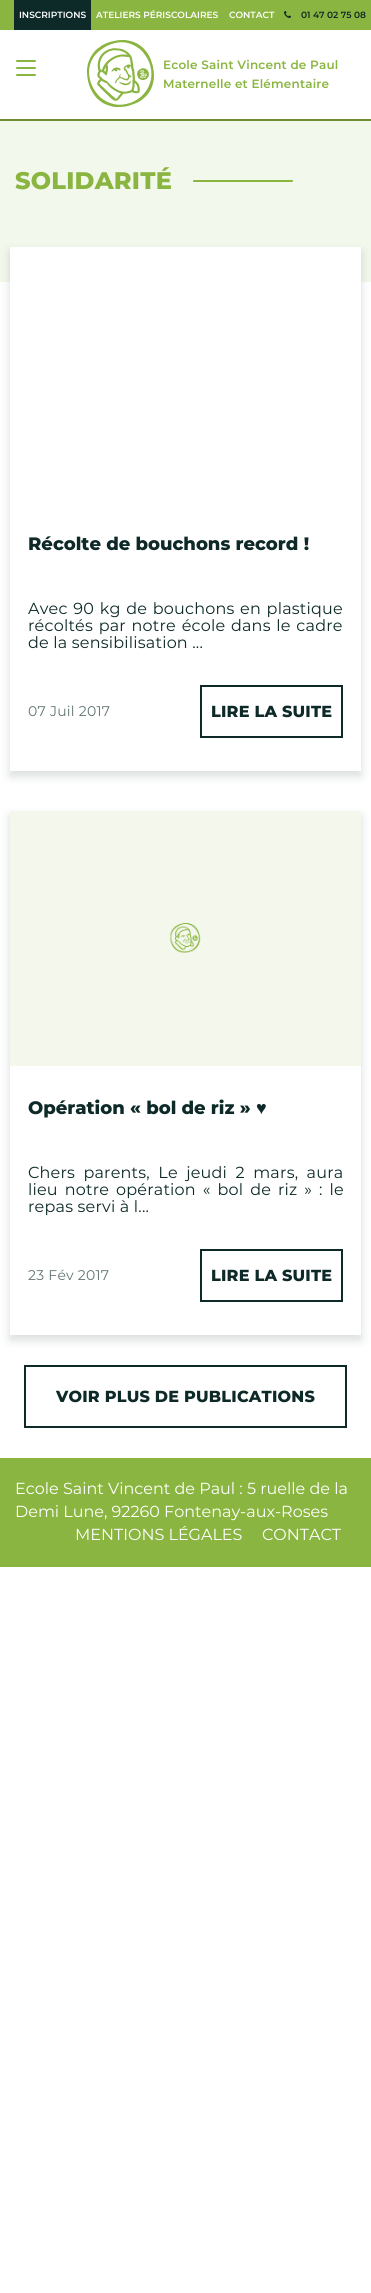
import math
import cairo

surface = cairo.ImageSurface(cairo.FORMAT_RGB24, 371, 2293)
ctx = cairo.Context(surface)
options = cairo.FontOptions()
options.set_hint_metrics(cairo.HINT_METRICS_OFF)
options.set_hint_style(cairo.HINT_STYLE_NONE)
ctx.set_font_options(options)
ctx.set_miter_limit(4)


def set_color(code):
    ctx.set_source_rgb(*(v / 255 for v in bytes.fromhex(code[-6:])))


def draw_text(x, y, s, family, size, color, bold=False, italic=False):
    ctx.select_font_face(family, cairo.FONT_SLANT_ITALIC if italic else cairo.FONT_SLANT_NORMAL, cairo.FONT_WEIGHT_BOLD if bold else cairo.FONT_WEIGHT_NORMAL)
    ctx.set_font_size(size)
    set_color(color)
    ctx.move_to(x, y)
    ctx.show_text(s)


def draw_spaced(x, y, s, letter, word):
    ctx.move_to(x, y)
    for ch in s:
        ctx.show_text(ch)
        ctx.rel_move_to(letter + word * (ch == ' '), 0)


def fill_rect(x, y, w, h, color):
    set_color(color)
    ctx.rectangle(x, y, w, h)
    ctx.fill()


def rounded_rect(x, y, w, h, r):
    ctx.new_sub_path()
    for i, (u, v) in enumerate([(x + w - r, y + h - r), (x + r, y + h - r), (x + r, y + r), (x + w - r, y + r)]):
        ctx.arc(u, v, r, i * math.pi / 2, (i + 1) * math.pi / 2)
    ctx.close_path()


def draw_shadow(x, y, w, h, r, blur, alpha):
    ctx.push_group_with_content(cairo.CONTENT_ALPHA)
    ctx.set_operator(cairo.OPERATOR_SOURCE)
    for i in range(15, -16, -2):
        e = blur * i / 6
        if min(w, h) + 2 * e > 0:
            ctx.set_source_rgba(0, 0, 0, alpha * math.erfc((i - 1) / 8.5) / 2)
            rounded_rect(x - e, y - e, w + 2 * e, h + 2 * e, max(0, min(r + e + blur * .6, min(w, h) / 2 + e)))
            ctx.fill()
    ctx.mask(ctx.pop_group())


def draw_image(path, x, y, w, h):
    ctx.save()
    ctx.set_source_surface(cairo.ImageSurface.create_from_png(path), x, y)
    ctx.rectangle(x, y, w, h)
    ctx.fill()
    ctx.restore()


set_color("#ffffff")
ctx.paint()
fill_rect(0, 0, 371, 30, "#8ab540")
fill_rect(14, 0, 77, 30, "#0e2a28")
draw_text(19, 18, "INSCRIPTIONS", "Montserrat SemiBold", 9, "#ffffff")
draw_text(96, 18, "ATELIERS PÉRISCOLAIRES", "Montserrat SemiBold", 9, "#ffffff")
draw_text(229, 18, "CONTACT", "Montserrat SemiBold", 9, "#ffffff")
draw_image("assets/img1.png", 284, 11, 7, 7)
draw_text(301, 18, "01 47 02 75 08", "Montserrat SemiBold", 9, "#0e2a28")
set_color("#8ab540")
rounded_rect(16, 67, 20, 2, 1)
ctx.fill()
rounded_rect(16, 60, 20, 2, 1)
ctx.fill()
rounded_rect(16, 74, 20, 2, 1)
ctx.fill()
draw_image("assets/img2.png", 87, 40, 67, 67)
ctx.set_font_size(12)
draw_spaced(163, 69, "Ecole Saint Vincent de Paul", 0.2, 0)
draw_spaced(163, 88, "Maternelle et Elémentaire", 0.2, 0)
fill_rect(0, 119, 371, 2, "#708d30")
fill_rect(0, 121, 371, 161, "#f3f8ec")
ctx.select_font_face("Montserrat ExtraBold")
ctx.set_font_size(24)
set_color("#8ab540")
draw_spaced(15, 189, "SOLIDARITÉ", 0.25, 0)
rounded_rect(193, 180, 100, 2, 1)
ctx.fill()
set_color("#0e2a28")
draw_shadow(10, 252, 351, 524, 0, 5, 0.16)
fill_rect(10, 247, 351, 524, "#ffffff")
draw_text(28, 550, "Récolte de bouchons record !", "Montserrat ExtraBold", 18, "#0e2a28")
ctx.select_font_face("Montserrat")
ctx.set_font_size(16)
draw_spaced(28, 614, "Avec 90 kg de bouchons en plastique", 0.2, 1.25)
draw_spaced(28, 631, "récoltés par notre école dans le cadre", 0.2, 1.25)
draw_spaced(28, 648, "de la sensibilisation ...", 0.2, 0)
ctx.set_font_size(14)
set_color("#627573")
draw_spaced(28, 716, "07 Juil 2017", 0.25, 0)
ctx.rectangle(201, 686, 141, 51)
set_color("#0e2a28")
ctx.stroke()
ctx.select_font_face("Montserrat ExtraBold")
ctx.set_font_size(16)
draw_spaced(211, 717, "LIRE LA SUITE", 0.2, 0)
ctx.save()
ctx.set_fill_rule(cairo.FILL_RULE_EVEN_ODD)
ctx.new_path()
ctx.move_to(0, 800)
ctx.line_to(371, 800)
ctx.line_to(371, 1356)
ctx.line_to(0, 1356)
ctx.close_path()
ctx.move_to(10, 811)
ctx.line_to(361, 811)
ctx.line_to(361, 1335)
ctx.line_to(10, 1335)
ctx.close_path()
ctx.clip()
set_color("#0e2a28")
draw_shadow(10, 816, 351, 524, 0, 5, 0.16)
ctx.restore()
draw_image("assets/img3.png", 10, 811, 351, 255)
draw_text(28, 1114, "Opération « bol de riz »", "Montserrat ExtraBold", 18, "#0e2a28")
draw_text(256, 1114, "♥", "Liberation Sans", 18, "#0e2a28", bold=True)
ctx.select_font_face("Montserrat")
ctx.set_font_size(16)
draw_spaced(28, 1178, "Chers parents, Le jeudi 2 mars, aura", 0.2, 4)
draw_spaced(28, 1195, "lieu notre opération « bol de riz » : le", 0.2, 2.5)
draw_spaced(28, 1212, "repas servi à l...", 0.2, 0)
ctx.set_font_size(14)
set_color("#627573")
draw_spaced(28, 1280, "23 Fév 2017", 0.25, 0)
ctx.rectangle(201, 1250, 141, 51)
set_color("#0e2a28")
ctx.stroke()
ctx.select_font_face("Montserrat ExtraBold")
ctx.set_font_size(16)
draw_spaced(211, 1281, "LIRE LA SUITE", 0.2, 0)
ctx.rectangle(25, 1366, 321, 61)
ctx.stroke()
draw_spaced(56, 1402, "VOIR PLUS DE PUBLICATIONS", 0.2, 0)
fill_rect(0, 1458, 371, 109, "#8ab540")
draw_text(15, 1494, "Ecole Saint Vincent de Paul : 5 ruelle de la", "Montserrat", 16, "#ffffff")
draw_text(15, 1517, "Demi Lune, 92260 Fontenay-aux-Roses", "Montserrat", 16, "#ffffff")
draw_text(75, 1540, "MENTIONS LÉGALES", "Montserrat", 16, "#ffffff")
draw_text(262, 1540, "CONTACT", "Montserrat", 16, "#ffffff")
surface.write_to_png("output.png")
